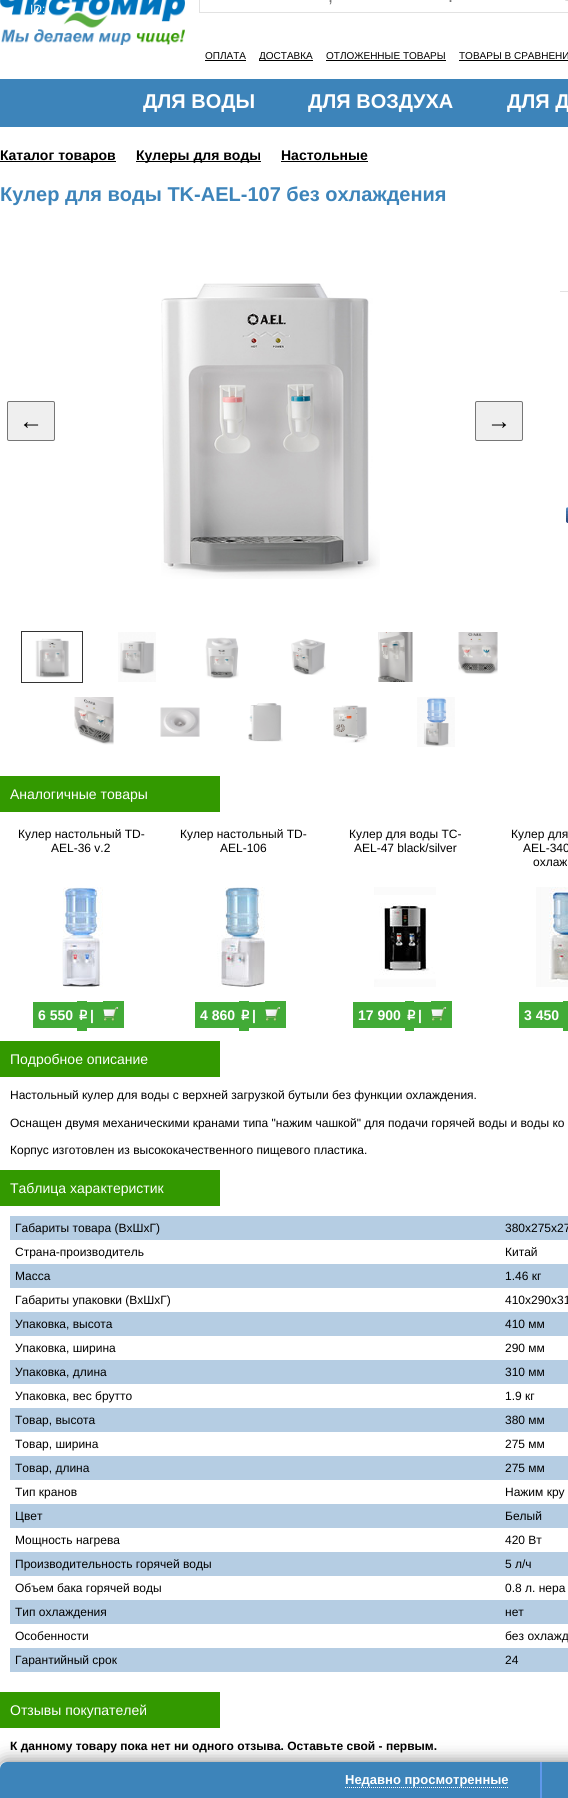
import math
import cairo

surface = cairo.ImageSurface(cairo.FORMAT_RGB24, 568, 1798)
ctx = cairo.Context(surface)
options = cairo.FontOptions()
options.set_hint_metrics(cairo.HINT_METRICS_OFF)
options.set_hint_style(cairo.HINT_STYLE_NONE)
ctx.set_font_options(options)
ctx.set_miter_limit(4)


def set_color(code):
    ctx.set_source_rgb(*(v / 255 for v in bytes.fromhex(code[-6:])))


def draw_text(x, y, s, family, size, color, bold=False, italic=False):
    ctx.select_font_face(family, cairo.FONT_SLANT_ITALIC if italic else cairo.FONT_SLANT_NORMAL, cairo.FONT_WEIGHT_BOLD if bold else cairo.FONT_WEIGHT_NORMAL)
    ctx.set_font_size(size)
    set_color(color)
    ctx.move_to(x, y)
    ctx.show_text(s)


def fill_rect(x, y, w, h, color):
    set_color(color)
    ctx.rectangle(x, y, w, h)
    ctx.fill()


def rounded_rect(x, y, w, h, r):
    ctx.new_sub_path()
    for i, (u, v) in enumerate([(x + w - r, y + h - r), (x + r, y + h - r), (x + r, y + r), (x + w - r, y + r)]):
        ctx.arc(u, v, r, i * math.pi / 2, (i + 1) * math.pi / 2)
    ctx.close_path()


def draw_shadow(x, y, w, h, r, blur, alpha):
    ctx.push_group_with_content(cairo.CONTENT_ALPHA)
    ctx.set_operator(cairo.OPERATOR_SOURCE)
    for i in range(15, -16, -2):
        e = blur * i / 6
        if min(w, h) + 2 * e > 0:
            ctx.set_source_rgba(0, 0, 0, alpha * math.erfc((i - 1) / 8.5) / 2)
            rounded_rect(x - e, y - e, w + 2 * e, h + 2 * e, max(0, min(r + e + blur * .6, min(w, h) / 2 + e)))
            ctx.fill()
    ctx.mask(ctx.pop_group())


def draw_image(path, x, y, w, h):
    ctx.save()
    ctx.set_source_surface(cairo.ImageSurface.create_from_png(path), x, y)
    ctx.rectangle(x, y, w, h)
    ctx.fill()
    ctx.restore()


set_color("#ffffff")
ctx.paint()
draw_image("assets/img1.png", 0, 0, 185, 45)
ctx.rectangle(199.5, -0.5, 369, 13)
set_color("#e2e2e2")
ctx.set_line_width(1)
ctx.stroke()
draw_text(328, 2, ",", "Liberation Sans", 18, "#757575")
draw_text(448, 2, ".", "Liberation Sans", 18, "#757575")
draw_image("assets/img2.png", 565, 0, 3, 1)
draw_text(205, 59, "ОПЛАТА", "Liberation Sans", 10, "#000000")
fill_rect(205, 60, 41, 1, "#000000")
fill_rect(259, 60, 54, 1, "#000000")
draw_text(259, 59, "ДОСТАВКА", "Liberation Sans", 10, "#000000")
draw_text(326, 59, "ОТЛОЖЕННЫЕ ТОВАРЫ", "Liberation Sans", 10, "#000000")
fill_rect(326, 60, 120, 1, "#000000")
draw_text(459, 59, "ТОВАРЫ В СРАВНЕНИ", "Liberation Sans", 10, "#000000")
fill_rect(459, 60, 109, 1, "#000000")
fill_rect(0, 79, 568, 48, "#3d84ba")
draw_text(143, 108, "ДЛЯ ВОДЫ", "Liberation Sans", 20, "#ffffff", bold=True)
draw_text(308, 108, "ДЛЯ ВОЗДУХА", "Liberation Sans", 20, "#ffffff", bold=True)
draw_text(507, 108, "ДЛЯ Д", "Liberation Sans", 20, "#ffffff", bold=True)
fill_rect(0, 161, 116, 1, "#000000")
draw_text(0, 160, "Каталог товаров", "Liberation Sans", 14, "#000000", bold=True)
fill_rect(136, 161, 125, 1, "#000000")
draw_text(136, 160, "Кулеры для воды", "Liberation Sans", 14, "#000000", bold=True)
draw_text(281, 160, "Настольные", "Liberation Sans", 14, "#000000", bold=True)
fill_rect(281, 161, 87, 1, "#000000")
draw_text(0, 201, "Кулер для воды TK-AEL-107 без охлаждения", "Liberation Sans", 20, "#3d84ba", bold=True)
set_color("#efefef")
rounded_rect(7.5, 401.5, 47, 39, 1.5)
ctx.fill_preserve()
set_color("#767676")
ctx.stroke()
draw_text(19, 429, "←", "Liberation Sans", 24, "#000000")
draw_image("assets/img3.png", 161, 283, 219, 296)
set_color("#efefef")
rounded_rect(475.5, 401.5, 47, 39, 1.5)
ctx.fill_preserve()
set_color("#767676")
ctx.stroke()
draw_text(487, 429, "→", "Liberation Sans", 24, "#000000")
ctx.rectangle(21.5, 631.5, 61, 51)
set_color("#333333")
ctx.stroke()
draw_image("assets/img4.png", 118, 632, 38, 50)
draw_image("assets/img5.png", 205, 637, 34, 42)
draw_image("assets/img6.png", 378, 632, 35, 50)
draw_image("assets/img7.png", 458, 632, 40, 43)
draw_image("assets/img8.png", 35, 638, 35, 40)
draw_image("assets/img9.png", 291, 638, 35, 37)
draw_image("assets/img10.png", 74, 697, 40, 48)
draw_image("assets/img11.png", 160, 707, 40, 30)
draw_image("assets/img12.png", 248, 703, 35, 39)
draw_image("assets/img13.png", 333, 705, 35, 38)
draw_image("assets/img14.png", 417, 697, 38, 50)
fill_rect(560, 291, 8, 1, "#e2e2e2")
draw_image("assets/img15.png", 566, 507, 2, 16)
fill_rect(0, 776, 220, 36, "#339900")
draw_text(10, 799, "Аналогичные товары", "Liberation Sans", 14, "#ffffff")
draw_text(18, 838, "Кулер настольный TD-", "Liberation Sans", 12, "#000000")
draw_text(51, 852, "AEL-36 v.2", "Liberation Sans", 12, "#000000")
draw_image("assets/img16.png", 62, 887, 41, 100)
fill_rect(33, 1002, 44, 26, "#42ab37")
draw_text(38, 1020, "6 550", "Liberation Sans", 14, "#ffffff", bold=True)
fill_rect(77, 1001, 10, 30, "#42ab37")
draw_text(77, 1020, "p", "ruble", 14, "#ffffff", bold=True)
fill_rect(87, 1002, 37, 26, "#42ab37")
draw_text(90, 1020, "|", "Liberation Sans", 14, "#ffffff", bold=True)
fill_rect(103, 1001, 21, 1, "#42ab37")
draw_image("assets/img17.png", 103, 1007, 16, 14)
draw_text(180, 838, "Кулер настольный TD-", "Liberation Sans", 12, "#000000")
draw_text(220, 852, "AEL-106", "Liberation Sans", 12, "#000000")
draw_image("assets/img18.png", 217, 887, 48, 100)
fill_rect(195, 1002, 44, 26, "#42ab37")
draw_text(200, 1020, "4 860", "Liberation Sans", 14, "#ffffff", bold=True)
fill_rect(239, 1001, 10, 30, "#42ab37")
draw_text(239, 1020, "p", "ruble", 14, "#ffffff", bold=True)
fill_rect(249, 1002, 37, 26, "#42ab37")
draw_text(252, 1020, "|", "Liberation Sans", 14, "#ffffff", bold=True)
fill_rect(265, 1001, 21, 1, "#42ab37")
draw_image("assets/img17.png", 265, 1007, 16, 14)
draw_text(349, 838, "Кулер для воды TC-", "Liberation Sans", 12, "#000000")
draw_text(354, 852, "AEL-47 black/silver", "Liberation Sans", 12, "#000000")
draw_image("assets/img19.png", 374, 887, 62, 100)
fill_rect(353, 1002, 52, 26, "#42ab37")
draw_text(358, 1020, "17 900", "Liberation Sans", 14, "#ffffff", bold=True)
fill_rect(405, 1001, 9, 30, "#42ab37")
fill_rect(414, 1002, 38, 26, "#42ab37")
draw_text(405, 1020, "p", "ruble", 14, "#ffffff", bold=True)
draw_text(418, 1020, "|", "Liberation Sans", 14, "#ffffff", bold=True)
fill_rect(431, 1001, 21, 1, "#42ab37")
draw_image("assets/img17.png", 431, 1007, 16, 14)
draw_text(511, 838, "Кулер для", "Liberation Sans", 12, "#000000")
draw_text(523, 852, "AEL-340", "Liberation Sans", 12, "#000000")
draw_text(533, 866, "охлаж", "Liberation Sans", 12, "#000000")
draw_image("assets/img20.png", 536, 887, 32, 100)
fill_rect(519, 1002, 44, 26, "#42ab37")
draw_text(524, 1020, "3 450", "Liberation Sans", 14, "#ffffff", bold=True)
fill_rect(563, 1001, 5, 30, "#42ab37")
fill_rect(0, 1041, 220, 36, "#339900")
draw_text(10, 1064, "Подробное описание", "Liberation Sans", 14, "#ffffff")
draw_text(10, 1099, "Настольный кулер для воды с верхней загрузкой бутыли без функции охлаждения.", "Liberation Sans", 12, "#000000")
draw_text(10, 1127, "Оснащен двумя механическими кранами типа \"нажим чашкой\" для подачи горячей воды и воды ко", "Liberation Sans", 12, "#000000")
draw_text(10, 1154, "Корпус изготовлен из высококачественного пищевого пластика.", "Liberation Sans", 12, "#000000")
fill_rect(0, 1170, 220, 36, "#339900")
draw_text(10, 1193, "Таблица характеристик", "Liberation Sans", 14, "#ffffff")
fill_rect(10, 1216, 558, 24, "#b5cde3")
draw_text(15, 1232, "Габариты товара (ВхШхГ)", "Liberation Sans", 12, "#000000")
draw_text(505, 1232, "380x275х27", "Liberation Sans", 12, "#000000")
draw_text(15, 1256, "Страна-производитель", "Liberation Sans", 12, "#000000")
draw_text(505, 1256, "Китай", "Liberation Sans", 12, "#000000")
fill_rect(10, 1264, 558, 24, "#b5cde3")
draw_text(15, 1280, "Масса", "Liberation Sans", 12, "#000000")
draw_text(505, 1280, "1.46 кг", "Liberation Sans", 12, "#000000")
draw_text(15, 1304, "Габариты упаковки (ВхШхГ)", "Liberation Sans", 12, "#000000")
draw_text(505, 1304, "410x290х31", "Liberation Sans", 12, "#000000")
fill_rect(10, 1312, 558, 24, "#b5cde3")
draw_text(15, 1328, "Упаковка, высота", "Liberation Sans", 12, "#000000")
draw_text(505, 1328, "410 мм", "Liberation Sans", 12, "#000000")
draw_text(15, 1352, "Упаковка, ширина", "Liberation Sans", 12, "#000000")
draw_text(505, 1352, "290 мм", "Liberation Sans", 12, "#000000")
fill_rect(10, 1360, 558, 24, "#b5cde3")
draw_text(15, 1376, "Упаковка, длина", "Liberation Sans", 12, "#000000")
draw_text(505, 1376, "310 мм", "Liberation Sans", 12, "#000000")
draw_text(15, 1400, "Упаковка, вес брутто", "Liberation Sans", 12, "#000000")
draw_text(505, 1400, "1.9 кг", "Liberation Sans", 12, "#000000")
fill_rect(10, 1408, 558, 24, "#b5cde3")
draw_text(15, 1424, "Товар, высота", "Liberation Sans", 12, "#000000")
draw_text(505, 1424, "380 мм", "Liberation Sans", 12, "#000000")
draw_text(15, 1448, "Товар, ширина", "Liberation Sans", 12, "#000000")
draw_text(505, 1448, "275 мм", "Liberation Sans", 12, "#000000")
fill_rect(10, 1456, 558, 24, "#b5cde3")
draw_text(15, 1472, "Товар, длина", "Liberation Sans", 12, "#000000")
draw_text(505, 1472, "275 мм", "Liberation Sans", 12, "#000000")
draw_text(15, 1496, "Тип кранов", "Liberation Sans", 12, "#000000")
draw_text(505, 1496, "Нажим кру", "Liberation Sans", 12, "#000000")
fill_rect(10, 1504, 558, 24, "#b5cde3")
draw_text(15, 1520, "Цвет", "Liberation Sans", 12, "#000000")
draw_text(505, 1520, "Белый", "Liberation Sans", 12, "#000000")
draw_text(15, 1544, "Мощность нагрева", "Liberation Sans", 12, "#000000")
draw_text(505, 1544, "420 Вт", "Liberation Sans", 12, "#000000")
fill_rect(10, 1552, 558, 24, "#b5cde3")
draw_text(15, 1568, "Производительность горячей воды", "Liberation Sans", 12, "#000000")
draw_text(505, 1568, "5 л/ч", "Liberation Sans", 12, "#000000")
draw_text(15, 1592, "Объем бака горячей воды", "Liberation Sans", 12, "#000000")
draw_text(505, 1592, "0.8 л. нера", "Liberation Sans", 12, "#000000")
fill_rect(10, 1600, 558, 24, "#b5cde3")
draw_text(15, 1616, "Тип охлаждения", "Liberation Sans", 12, "#000000")
draw_text(505, 1616, "нет", "Liberation Sans", 12, "#000000")
draw_text(15, 1640, "Особенности", "Liberation Sans", 12, "#000000")
draw_text(505, 1640, "без охлажд", "Liberation Sans", 12, "#000000")
fill_rect(10, 1648, 558, 24, "#b5cde3")
draw_text(15, 1664, "Гарантийный срок", "Liberation Sans", 12, "#000000")
draw_text(505, 1664, "24", "Liberation Sans", 12, "#000000")
fill_rect(0, 1692, 220, 36, "#339900")
draw_text(10, 1715, "Отзывы покупателей", "Liberation Sans", 14, "#ffffff")
draw_text(10, 1750, "К данному товару пока нет ни одного отзыва. Оставьте свой - первым.", "Liberation Sans", 12, "#000000", bold=True)
draw_text(30, 13, "ID:", "Liberation Sans", 12, "#ffffff")
set_color("#3d84ba")
ctx.new_path()
ctx.move_to(7, 1762)
ctx.line_to(568, 1762)
ctx.curve_to(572, 1762, 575, 1765, 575, 1769)
ctx.line_to(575, 1798)
ctx.line_to(0, 1798)
ctx.line_to(0, 1769)
ctx.curve_to(0, 1765, 3, 1762, 7, 1762)
ctx.close_path()
ctx.fill()
ctx.save()
ctx.set_fill_rule(cairo.FILL_RULE_EVEN_ODD)
ctx.new_path()
ctx.move_to(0, 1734)
ctx.line_to(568, 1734)
ctx.line_to(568, 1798)
ctx.line_to(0, 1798)
ctx.close_path()
ctx.move_to(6, 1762)
ctx.line_to(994, 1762)
ctx.curve_to(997.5, 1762, 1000, 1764.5, 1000, 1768)
ctx.line_to(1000, 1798)
ctx.line_to(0, 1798)
ctx.line_to(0, 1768)
ctx.curve_to(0, 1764.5, 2.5, 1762, 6, 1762)
ctx.close_path()
ctx.clip()
set_color("#000000")
draw_shadow(0, 1762, 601, 36, 6, 9, 0.5)
ctx.restore()
draw_text(345, 1784, "Недавно просмотренные", "Liberation Sans", 13, "#ffffff", bold=True)
ctx.new_path()
ctx.move_to(345, 1787.5)
ctx.line_to(508, 1787.5)
ctx.set_dash([1, 1])
ctx.stroke()
fill_rect(540, 1762, 2, 36, "#6098eb")
surface.write_to_png("output.png")
